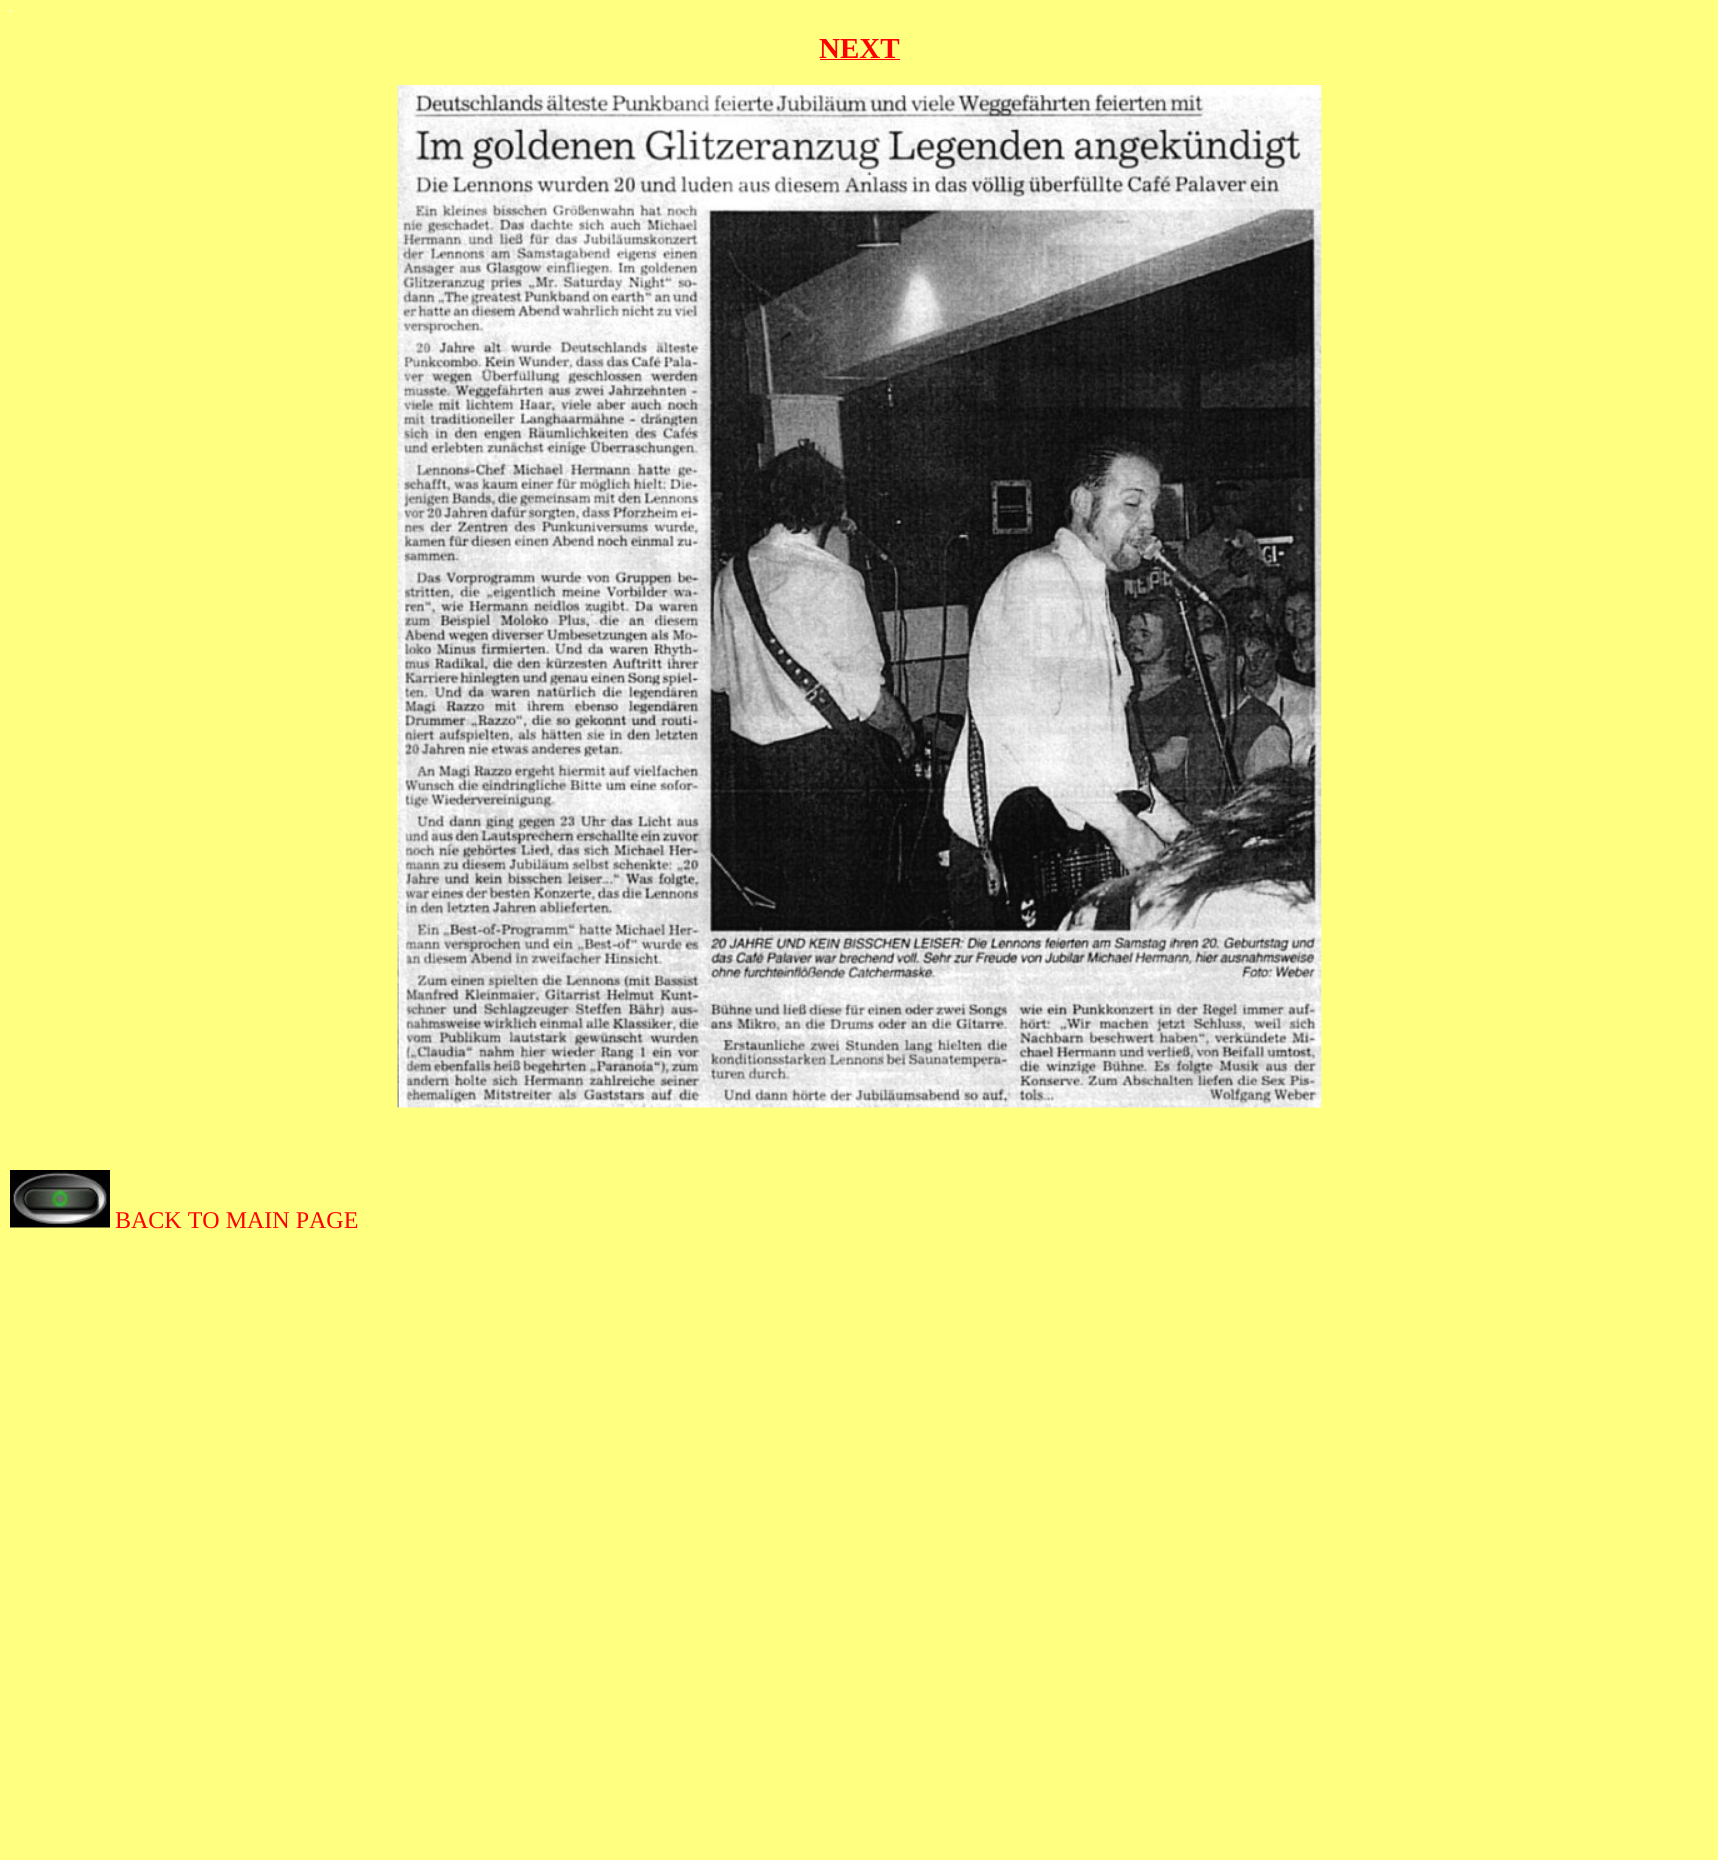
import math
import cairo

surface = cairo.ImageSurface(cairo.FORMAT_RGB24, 1718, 1860)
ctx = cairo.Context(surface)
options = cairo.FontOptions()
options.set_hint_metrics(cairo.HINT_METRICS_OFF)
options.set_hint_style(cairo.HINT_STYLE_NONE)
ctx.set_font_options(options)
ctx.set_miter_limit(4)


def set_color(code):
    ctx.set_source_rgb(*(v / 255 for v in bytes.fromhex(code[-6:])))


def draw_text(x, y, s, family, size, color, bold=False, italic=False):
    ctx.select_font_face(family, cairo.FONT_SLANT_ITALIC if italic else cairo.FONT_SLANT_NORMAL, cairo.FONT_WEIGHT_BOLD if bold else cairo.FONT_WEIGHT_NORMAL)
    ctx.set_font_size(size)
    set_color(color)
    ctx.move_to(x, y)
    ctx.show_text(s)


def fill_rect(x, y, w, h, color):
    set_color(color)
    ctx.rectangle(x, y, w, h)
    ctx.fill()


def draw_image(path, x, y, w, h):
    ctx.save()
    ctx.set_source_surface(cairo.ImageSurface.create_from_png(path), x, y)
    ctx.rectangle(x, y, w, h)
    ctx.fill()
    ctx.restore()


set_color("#ffff80")
ctx.paint()
draw_image("assets/img1.png", 10, 10, 2, 2)
draw_text(819, 58, "NEXT", "Liberation Serif", 29, "#ff0000", bold=True)
fill_rect(820, 59, 80, 1, "#ff0000")
draw_image("assets/img2.png", 397, 85, 925, 1023)
draw_image("assets/img3.png", 10, 1170, 100, 58)
draw_text(115, 1228, "BACK TO MAIN PAGE", "Liberation Serif", 24, "#ff0000")
surface.write_to_png("output.png")
